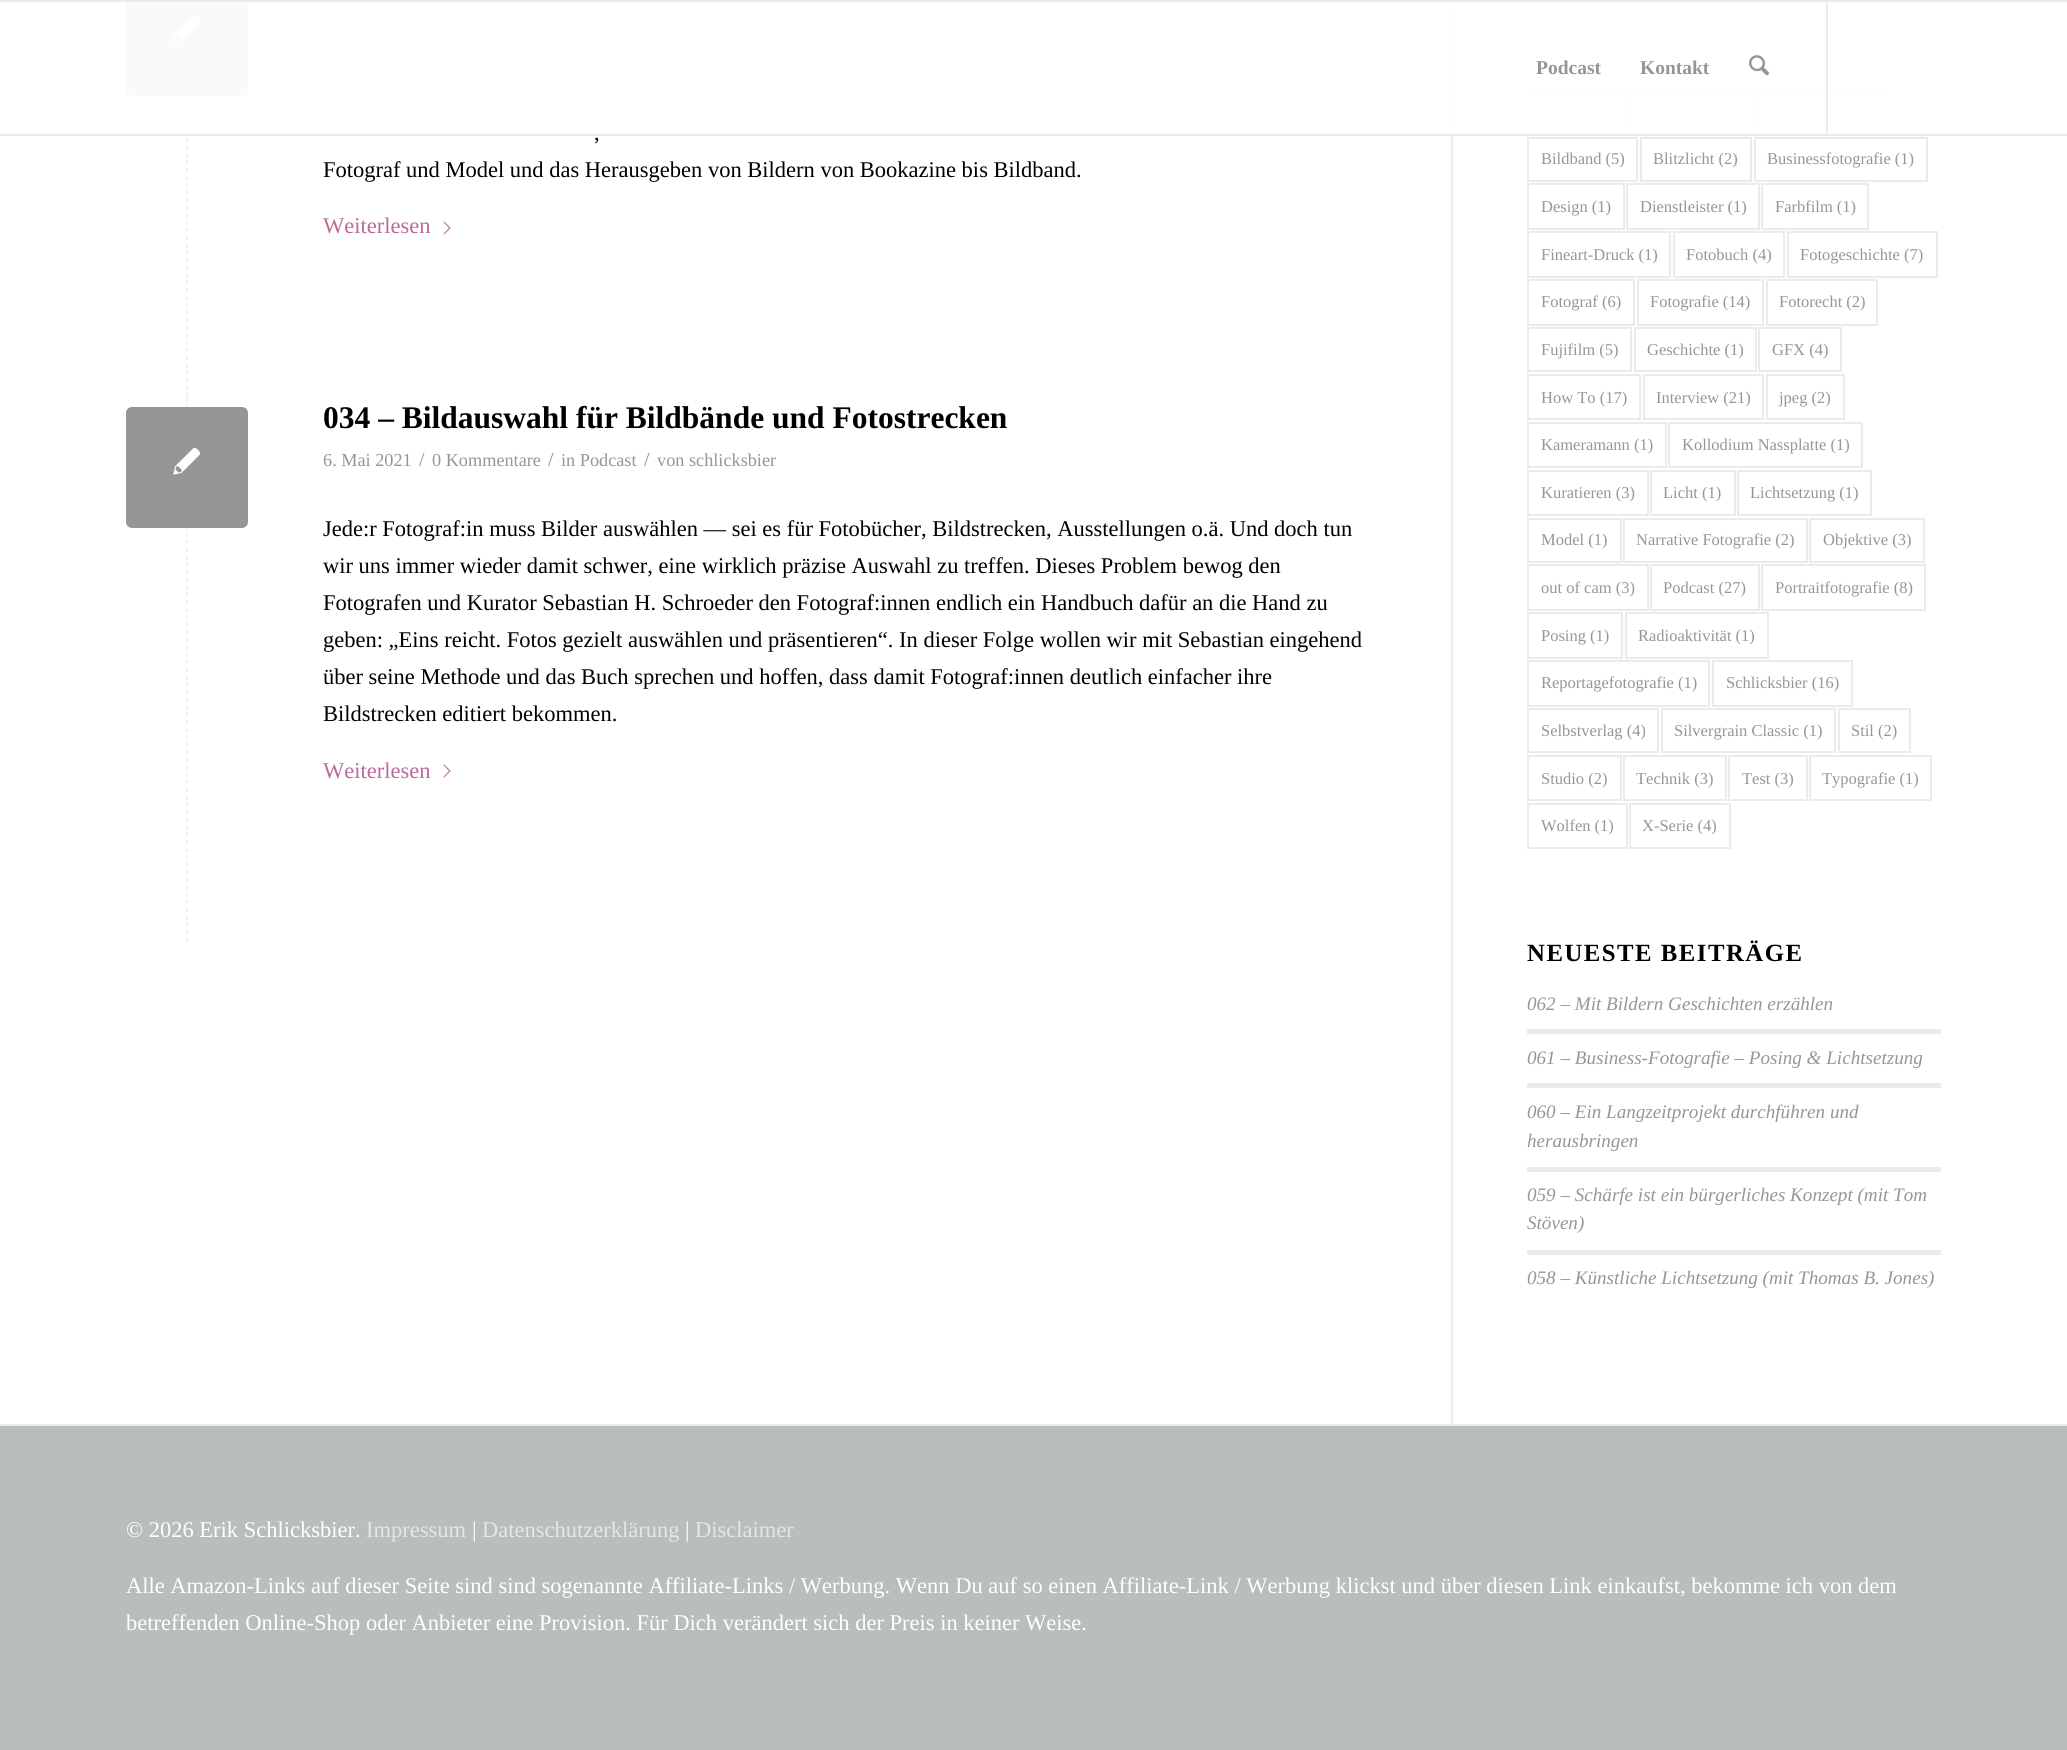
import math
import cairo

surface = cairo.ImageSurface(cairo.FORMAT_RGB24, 2067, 1750)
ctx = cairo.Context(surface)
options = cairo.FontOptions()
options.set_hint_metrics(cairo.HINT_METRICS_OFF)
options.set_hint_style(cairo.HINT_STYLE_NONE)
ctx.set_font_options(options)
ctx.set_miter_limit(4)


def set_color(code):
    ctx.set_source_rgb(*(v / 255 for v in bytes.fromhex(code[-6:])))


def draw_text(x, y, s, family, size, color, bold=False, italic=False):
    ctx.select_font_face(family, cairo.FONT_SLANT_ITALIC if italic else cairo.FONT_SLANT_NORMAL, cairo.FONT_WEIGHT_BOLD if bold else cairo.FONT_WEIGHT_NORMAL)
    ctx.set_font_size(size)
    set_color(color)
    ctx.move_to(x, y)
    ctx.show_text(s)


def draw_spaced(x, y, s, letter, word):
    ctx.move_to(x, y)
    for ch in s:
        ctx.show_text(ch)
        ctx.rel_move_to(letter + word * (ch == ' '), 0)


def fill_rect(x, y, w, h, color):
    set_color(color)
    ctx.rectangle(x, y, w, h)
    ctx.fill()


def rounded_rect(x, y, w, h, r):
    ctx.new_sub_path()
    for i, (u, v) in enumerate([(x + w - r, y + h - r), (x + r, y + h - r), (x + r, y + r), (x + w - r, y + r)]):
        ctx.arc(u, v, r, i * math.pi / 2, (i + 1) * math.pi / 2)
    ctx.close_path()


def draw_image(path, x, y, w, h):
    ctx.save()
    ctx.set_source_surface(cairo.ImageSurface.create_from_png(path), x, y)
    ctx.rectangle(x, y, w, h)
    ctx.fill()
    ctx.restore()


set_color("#ffffff")
ctx.paint()
ctx.new_path()
ctx.move_to(187, -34.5)
ctx.line_to(187, 397.5)
set_color("#ebebeb")
ctx.set_line_width(1.5)
ctx.set_dash([4.5, 3])
ctx.stroke()
set_color("#969696")
rounded_rect(126, -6, 122, 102, 6)
ctx.fill()
draw_image("assets/img2.png", 173, 15, 28, 28)
fill_rect(1451, 0, 2, 1424, "#ebebeb")
ctx.rectangle(1528, 90, 97, 44)
ctx.set_line_width(2)
ctx.set_dash([])
ctx.stroke()
ctx.rectangle(1629, 90, 125, 44)
ctx.stroke()
ctx.rectangle(1758, 90, 130, 44)
ctx.stroke()
ctx.set_source_rgba(1, 1, 1, 0.95)
ctx.rectangle(126, 2, 1763, 132)
ctx.fill()
fill_rect(0, 0, 2067, 2, "#ebebeb")
fill_rect(0, 134, 2067, 2, "#ebebeb")
fill_rect(1826, 2, 2, 132, "#ebebeb")
draw_text(1536, 74, "Podcast", "Liberation Serif", 19.5, "#969696", bold=True)
draw_text(1640, 74, "Kontakt", "Liberation Serif", 19.5, "#969696", bold=True)
draw_image("assets/img1.png", 1749, 55, 20, 21)
draw_text(594, 140, ",", "Liberation Serif", 22.5, "#000000")
draw_text(323, 177, "Fotograf und Model und das Herausgeben von Bildern von Bookazine bis Bildband.", "Liberation Serif", 22.5, "#000000")
draw_text(323, 233, "Weiterlesen", "Liberation Serif", 22.5, "#bd6a98")
draw_image("assets/img3.png", 443, 221, 8, 14)
ctx.new_path()
ctx.move_to(187, 397.5)
ctx.line_to(187, 942)
set_color("#ebebeb")
ctx.set_line_width(1.5)
ctx.set_dash([4.5, 3])
ctx.stroke()
draw_text(323, 428, "034 – Bildauswahl für Bildbände und Fotostrecken", "Liberation Serif", 31.5, "#000000", bold=True)
draw_text(323, 466, "6. Mai 2021", "Liberation Serif", 18.25, "#969696")
draw_text(419, 466, "/", "Liberation Serif", 20, "#969696")
draw_text(432, 466, "0 Kommentare", "Liberation Serif", 18.25, "#969696")
draw_text(548, 466, "/", "Liberation Serif", 20, "#969696")
draw_text(561, 466, "in Podcast", "Liberation Serif", 18.25, "#969696")
draw_text(644, 466, "/", "Liberation Serif", 20, "#969696")
draw_text(657, 466, "von schlicksbier", "Liberation Serif", 18.25, "#969696")
draw_text(323, 536, "Jede:r Fotograf:in muss Bilder auswählen — sei es für Fotobücher, Bildstrecken, Ausstellungen o.ä. Und doch tun", "Liberation Serif", 22.5, "#000000")
draw_text(323, 573, "wir uns immer wieder damit schwer, eine wirklich präzise Auswahl zu treffen. Dieses Problem bewog den", "Liberation Serif", 22.5, "#000000")
draw_text(323, 610, "Fotografen und Kurator Sebastian H. Schroeder den Fotograf:innen endlich ein Handbuch dafür an die Hand zu", "Liberation Serif", 22.5, "#000000")
draw_text(323, 647, "geben: „Eins reicht. Fotos gezielt auswählen und präsentieren“. In dieser Folge wollen wir mit Sebastian eingehend", "Liberation Serif", 22.5, "#000000")
draw_text(323, 684, "über seine Methode und das Buch sprechen und hoffen, dass damit Fotograf:innen deutlich einfacher ihre", "Liberation Serif", 22.5, "#000000")
draw_text(323, 721, "Bildstrecken editiert bekommen.", "Liberation Serif", 22.5, "#000000")
draw_text(323, 778, "Weiterlesen", "Liberation Serif", 22.5, "#bd6a98")
draw_image("assets/img3.png", 443, 764, 8, 14)
set_color("#969696")
rounded_rect(126, 407, 122, 121, 6)
ctx.fill()
draw_image("assets/img2.png", 173, 447, 28, 28)
ctx.rectangle(1528, 138, 109, 43)
set_color("#ebebeb")
ctx.set_line_width(2)
ctx.set_dash([])
ctx.stroke()
draw_text(1541, 164, "Bildband (5)", "Liberation Serif", 16.5, "#969696")
ctx.rectangle(1641, 138, 110, 43)
set_color("#ebebeb")
ctx.stroke()
draw_text(1653, 164, "Blitzlicht (2)", "Liberation Serif", 16.5, "#969696")
ctx.rectangle(1755, 138, 172, 43)
set_color("#ebebeb")
ctx.stroke()
draw_text(1767, 164, "Businessfotografie (1)", "Liberation Serif", 16.5, "#969696")
ctx.rectangle(1528, 184, 96, 45)
set_color("#ebebeb")
ctx.stroke()
draw_text(1541, 212, "Design (1)", "Liberation Serif", 16.5, "#969696")
ctx.rectangle(1627, 184, 132, 45)
set_color("#ebebeb")
ctx.stroke()
draw_text(1640, 212, "Dienstleister (1)", "Liberation Serif", 16.5, "#969696")
ctx.rectangle(1762, 184, 106, 45)
set_color("#ebebeb")
ctx.stroke()
draw_text(1775, 212, "Farbfilm (1)", "Liberation Serif", 16.5, "#969696")
ctx.rectangle(1528, 232, 142, 45)
set_color("#ebebeb")
ctx.stroke()
draw_text(1541, 260, "Fineart-Druck (1)", "Liberation Serif", 16.5, "#969696")
ctx.rectangle(1674, 232, 110, 45)
set_color("#ebebeb")
ctx.stroke()
draw_text(1686, 260, "Fotobuch (4)", "Liberation Serif", 16.5, "#969696")
ctx.rectangle(1788, 232, 149, 45)
set_color("#ebebeb")
ctx.stroke()
draw_text(1800, 260, "Fotogeschichte (7)", "Liberation Serif", 16.5, "#969696")
ctx.rectangle(1528, 280, 106, 45)
set_color("#ebebeb")
ctx.stroke()
draw_text(1541, 307, "Fotograf (6)", "Liberation Serif", 16.5, "#969696")
ctx.rectangle(1638, 280, 125, 45)
set_color("#ebebeb")
ctx.stroke()
draw_text(1650, 307, "Fotografie (14)", "Liberation Serif", 16.5, "#969696")
ctx.rectangle(1767, 280, 110, 45)
set_color("#ebebeb")
ctx.stroke()
draw_text(1779, 307, "Fotorecht (2)", "Liberation Serif", 16.5, "#969696")
ctx.rectangle(1528, 328, 103, 43)
set_color("#ebebeb")
ctx.stroke()
draw_text(1541, 355, "Fujifilm (5)", "Liberation Serif", 16.5, "#969696")
ctx.rectangle(1635, 328, 121, 43)
set_color("#ebebeb")
ctx.stroke()
draw_text(1647, 355, "Geschichte (1)", "Liberation Serif", 16.5, "#969696")
ctx.rectangle(1759, 328, 82, 43)
set_color("#ebebeb")
ctx.stroke()
draw_text(1772, 355, "GFX (4)", "Liberation Serif", 16.5, "#969696")
ctx.rectangle(1528, 375, 112, 44)
set_color("#ebebeb")
ctx.stroke()
draw_text(1541, 403, "How To (17)", "Liberation Serif", 16.5, "#969696")
ctx.rectangle(1644, 375, 119, 44)
set_color("#ebebeb")
ctx.stroke()
draw_text(1656, 403, "Interview (21)", "Liberation Serif", 16.5, "#969696")
ctx.rectangle(1767, 375, 77, 44)
set_color("#ebebeb")
ctx.stroke()
draw_text(1779, 403, "jpeg (2)", "Liberation Serif", 16.5, "#969696")
ctx.rectangle(1528, 423, 138, 44)
set_color("#ebebeb")
ctx.stroke()
draw_text(1541, 450, "Kameramann (1)", "Liberation Serif", 16.5, "#969696")
ctx.rectangle(1669, 423, 193, 44)
set_color("#ebebeb")
ctx.stroke()
draw_text(1682, 450, "Kollodium Nassplatte (1)", "Liberation Serif", 16.5, "#969696")
ctx.rectangle(1528, 471, 120, 44)
set_color("#ebebeb")
ctx.stroke()
draw_text(1541, 498, "Kuratieren (3)", "Liberation Serif", 16.5, "#969696")
ctx.rectangle(1651, 471, 84, 44)
set_color("#ebebeb")
ctx.stroke()
draw_text(1663, 498, "Licht (1)", "Liberation Serif", 16.5, "#969696")
ctx.rectangle(1738, 471, 133, 44)
set_color("#ebebeb")
ctx.stroke()
draw_text(1750, 498, "Lichtsetzung (1)", "Liberation Serif", 16.5, "#969696")
ctx.rectangle(1528, 519, 93, 43)
set_color("#ebebeb")
ctx.stroke()
draw_text(1541, 545, "Model (1)", "Liberation Serif", 16.5, "#969696")
ctx.rectangle(1624, 519, 183, 43)
set_color("#ebebeb")
ctx.stroke()
draw_text(1636, 545, "Narrative Fotografie (2)", "Liberation Serif", 16.5, "#969696")
ctx.rectangle(1810, 519, 114, 43)
set_color("#ebebeb")
ctx.stroke()
draw_text(1823, 545, "Objektive (3)", "Liberation Serif", 16.5, "#969696")
ctx.rectangle(1528, 565, 120, 45)
set_color("#ebebeb")
ctx.stroke()
draw_text(1541, 593, "out of cam (3)", "Liberation Serif", 16.5, "#969696")
ctx.rectangle(1651, 565, 108, 45)
set_color("#ebebeb")
ctx.stroke()
draw_text(1663, 593, "Podcast (27)", "Liberation Serif", 16.5, "#969696")
ctx.rectangle(1762, 565, 163, 45)
set_color("#ebebeb")
ctx.stroke()
draw_text(1775, 593, "Portraitfotografie (8)", "Liberation Serif", 16.5, "#969696")
ctx.rectangle(1528, 613, 94, 45)
set_color("#ebebeb")
ctx.stroke()
draw_text(1541, 641, "Posing (1)", "Liberation Serif", 16.5, "#969696")
ctx.rectangle(1626, 613, 142, 45)
set_color("#ebebeb")
ctx.stroke()
draw_text(1638, 641, "Radioaktivität (1)", "Liberation Serif", 16.5, "#969696")
ctx.rectangle(1528, 661, 181, 45)
set_color("#ebebeb")
ctx.stroke()
draw_text(1541, 688, "Reportagefotografie (1)", "Liberation Serif", 16.5, "#969696")
ctx.rectangle(1713, 661, 139, 45)
set_color("#ebebeb")
ctx.stroke()
draw_text(1726, 688, "Schlicksbier (16)", "Liberation Serif", 16.5, "#969696")
ctx.rectangle(1528, 709, 130, 43)
set_color("#ebebeb")
ctx.stroke()
draw_text(1541, 736, "Selbstverlag (4)", "Liberation Serif", 16.5, "#969696")
ctx.rectangle(1662, 709, 173, 43)
set_color("#ebebeb")
ctx.stroke()
draw_text(1674, 736, "Silvergrain Classic (1)", "Liberation Serif", 16.5, "#969696")
ctx.rectangle(1839, 709, 71, 43)
set_color("#ebebeb")
ctx.stroke()
draw_text(1851, 736, "Stil (2)", "Liberation Serif", 16.5, "#969696")
ctx.rectangle(1528, 756, 93, 44)
set_color("#ebebeb")
ctx.stroke()
draw_text(1541, 784, "Studio (2)", "Liberation Serif", 16.5, "#969696")
ctx.rectangle(1624, 756, 102, 44)
set_color("#ebebeb")
ctx.stroke()
draw_text(1636, 784, "Technik (3)", "Liberation Serif", 16.5, "#969696")
ctx.rectangle(1729, 756, 78, 44)
set_color("#ebebeb")
ctx.stroke()
draw_text(1742, 784, "Test (3)", "Liberation Serif", 16.5, "#969696")
ctx.rectangle(1810, 756, 121, 44)
set_color("#ebebeb")
ctx.stroke()
draw_text(1822, 784, "Typografie (1)", "Liberation Serif", 16.5, "#969696")
ctx.rectangle(1528, 804, 99, 44)
set_color("#ebebeb")
ctx.stroke()
draw_text(1541, 831, "Wolfen (1)", "Liberation Serif", 16.5, "#969696")
ctx.rectangle(1630, 804, 100, 44)
set_color("#ebebeb")
ctx.stroke()
draw_text(1642, 831, "X-Serie (4)", "Liberation Serif", 16.5, "#969696")
ctx.select_font_face("Liberation Serif", cairo.FONT_SLANT_NORMAL, cairo.FONT_WEIGHT_BOLD)
ctx.set_font_size(24.75)
set_color("#000000")
draw_spaced(1527, 961, "NEUESTE BEITRÄGE", 1.5, 0)
draw_text(1527, 1010, "062 – Mit Bildern Geschichten erzählen", "Liberation Serif", 19.1, "#969696", italic=True)
fill_rect(1527, 1029, 414, 5, "#ebebeb")
draw_text(1527, 1064, "061 – Business-Fotografie – Posing & Lichtsetzung", "Liberation Serif", 19.1, "#969696", italic=True)
fill_rect(1527, 1083, 414, 5, "#ebebeb")
draw_text(1527, 1118, "060 – Ein Langzeitprojekt durchführen und", "Liberation Serif", 19.1, "#969696", italic=True)
draw_text(1527, 1147, "herausbringen", "Liberation Serif", 19.1, "#969696", italic=True)
fill_rect(1527, 1167, 414, 5, "#ebebeb")
draw_text(1527, 1201, "059 – Schärfe ist ein bürgerliches Konzept (mit Tom", "Liberation Serif", 19.1, "#969696", italic=True)
draw_text(1527, 1229, "Stöven)", "Liberation Serif", 19.1, "#969696", italic=True)
fill_rect(1527, 1250, 414, 5, "#ebebeb")
draw_text(1527, 1284, "058 – Künstliche Lichtsetzung (mit Thomas B. Jones)", "Liberation Serif", 19.1, "#969696", italic=True)
fill_rect(0, 1426, 2067, 324, "#b8bdbe")
fill_rect(0, 1424, 2067, 2, "#ebebeb")
draw_text(126, 1537, "© 2026 Erik Schlicksbier.", "Liberation Serif", 22.5, "#ffffff")
draw_text(366, 1537, "Impressum", "Liberation Serif", 22.5, "#e6e6e6")
draw_text(472, 1537, "|", "Liberation Serif", 22.5, "#ffffff")
draw_text(482, 1537, "Datenschutzerklärung", "Liberation Serif", 22.5, "#e6e6e6")
draw_text(685, 1537, "|", "Liberation Serif", 22.5, "#ffffff")
draw_text(695, 1537, "Disclaimer", "Liberation Serif", 22.5, "#e6e6e6")
draw_text(126, 1593, "Alle Amazon-Links auf dieser Seite sind sind sogenannte Affiliate-Links / Werbung. Wenn Du auf so einen Affiliate-Link / Werbung klickst und über diesen Link einkaufst, bekomme ich von dem", "Liberation Serif", 22.5, "#ffffff")
draw_text(126, 1630, "betreffenden Online-Shop oder Anbieter eine Provision. Für Dich verändert sich der Preis in keiner Weise.", "Liberation Serif", 22.5, "#ffffff")
surface.write_to_png("output.png")
